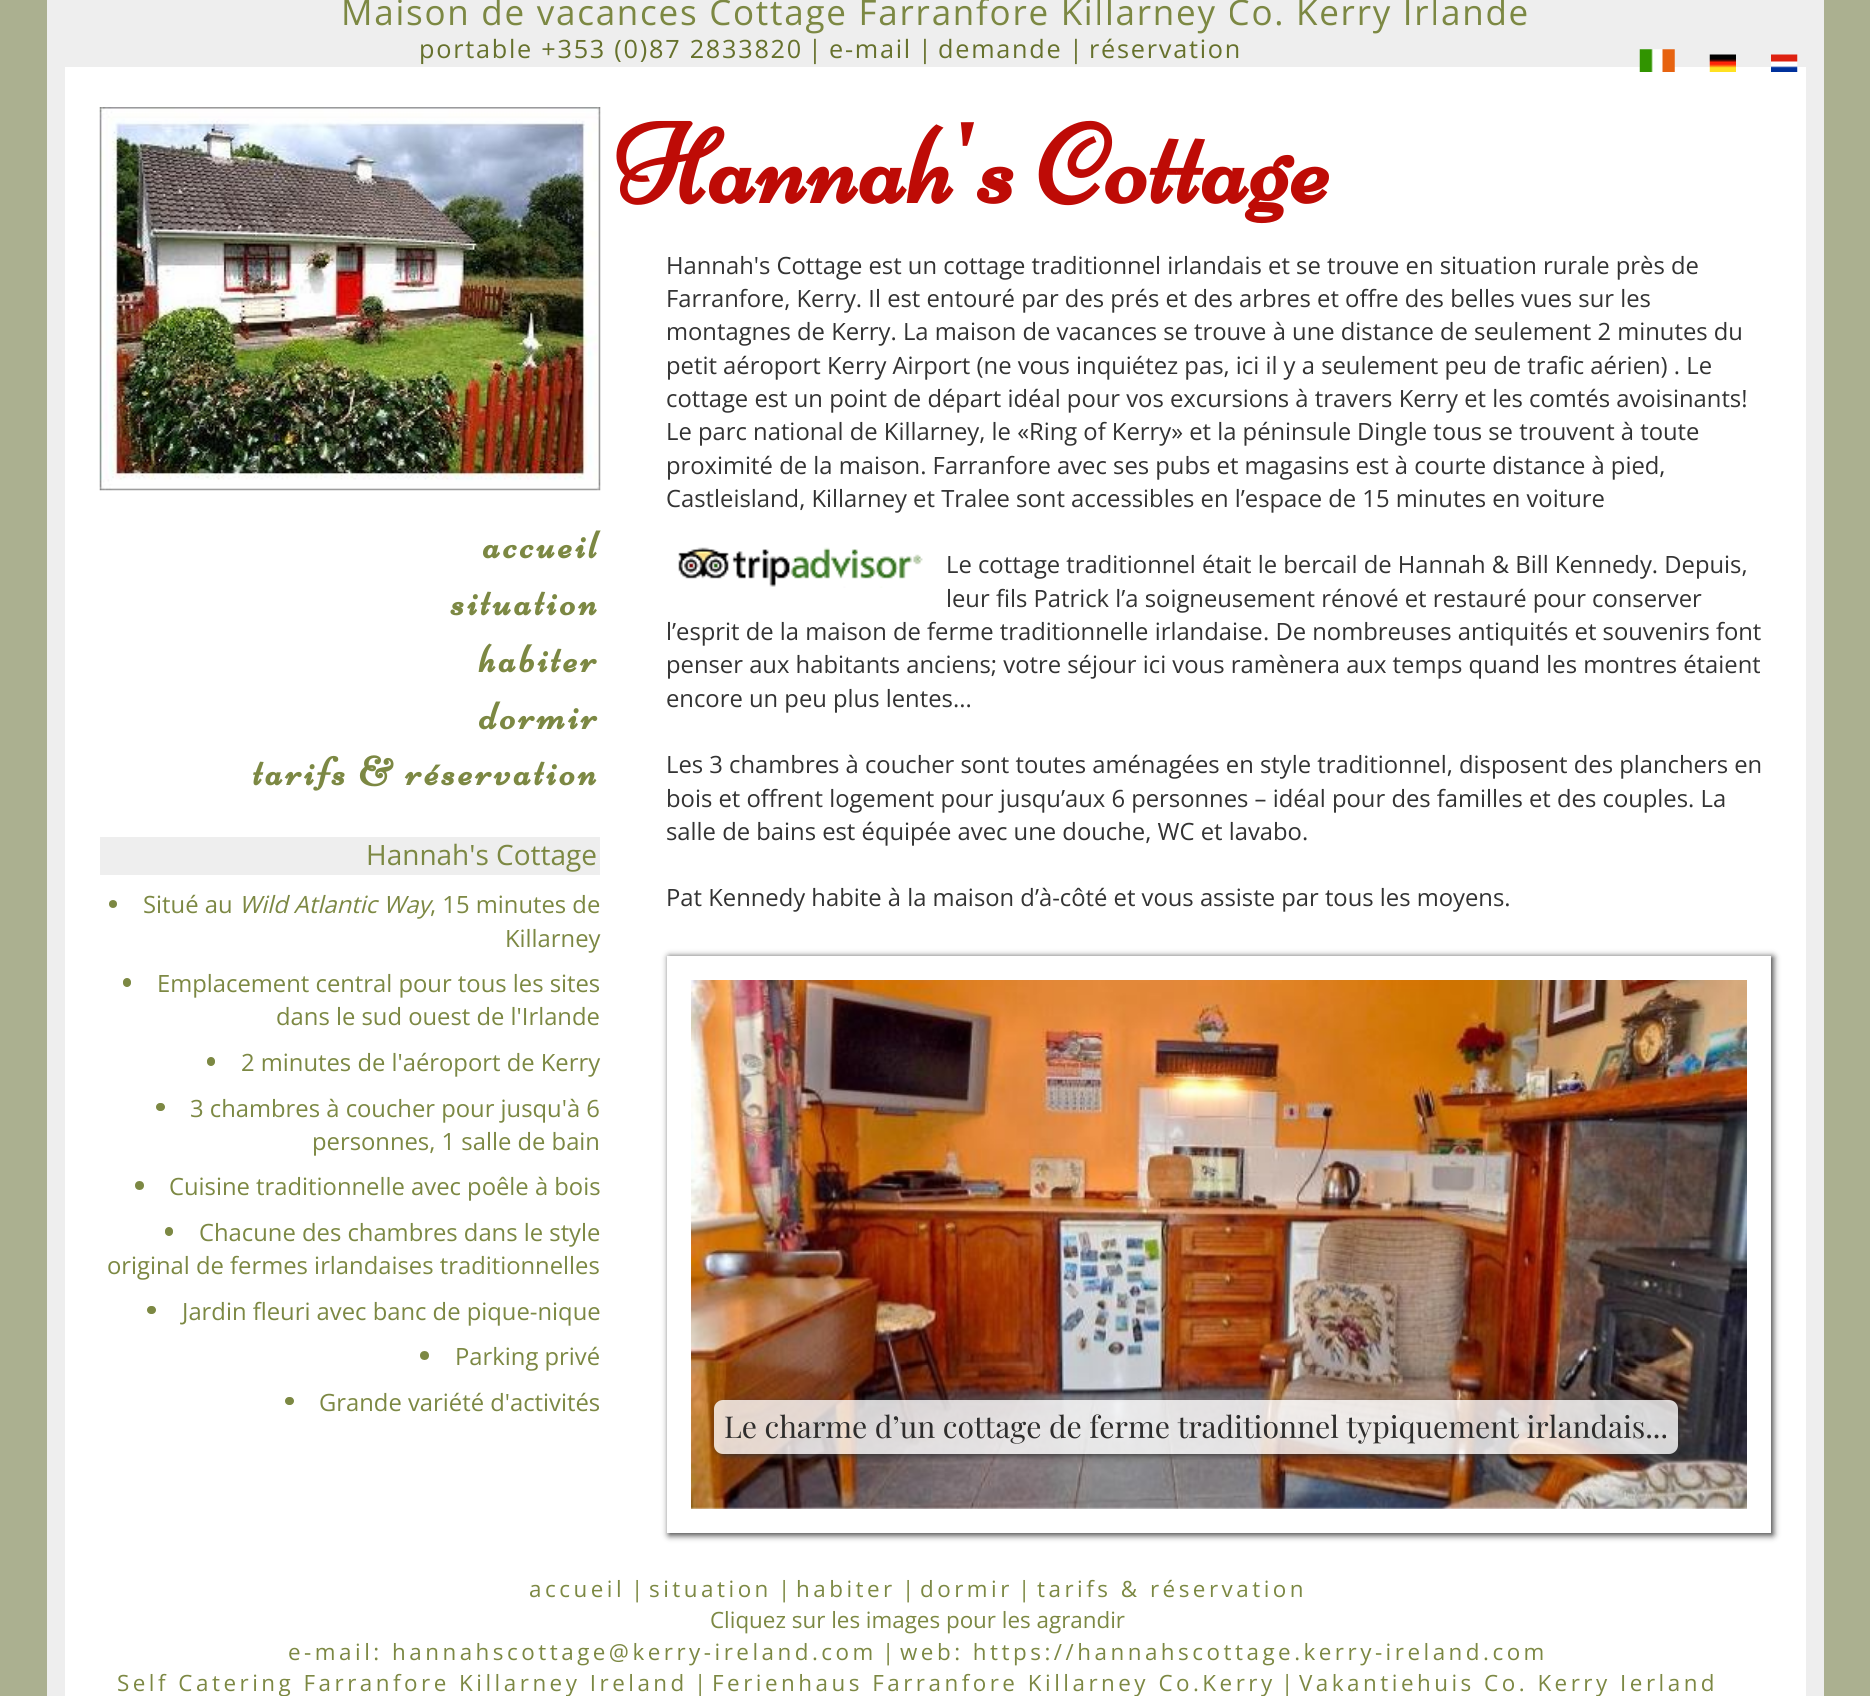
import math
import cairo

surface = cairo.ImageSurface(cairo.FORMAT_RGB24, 1870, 1696)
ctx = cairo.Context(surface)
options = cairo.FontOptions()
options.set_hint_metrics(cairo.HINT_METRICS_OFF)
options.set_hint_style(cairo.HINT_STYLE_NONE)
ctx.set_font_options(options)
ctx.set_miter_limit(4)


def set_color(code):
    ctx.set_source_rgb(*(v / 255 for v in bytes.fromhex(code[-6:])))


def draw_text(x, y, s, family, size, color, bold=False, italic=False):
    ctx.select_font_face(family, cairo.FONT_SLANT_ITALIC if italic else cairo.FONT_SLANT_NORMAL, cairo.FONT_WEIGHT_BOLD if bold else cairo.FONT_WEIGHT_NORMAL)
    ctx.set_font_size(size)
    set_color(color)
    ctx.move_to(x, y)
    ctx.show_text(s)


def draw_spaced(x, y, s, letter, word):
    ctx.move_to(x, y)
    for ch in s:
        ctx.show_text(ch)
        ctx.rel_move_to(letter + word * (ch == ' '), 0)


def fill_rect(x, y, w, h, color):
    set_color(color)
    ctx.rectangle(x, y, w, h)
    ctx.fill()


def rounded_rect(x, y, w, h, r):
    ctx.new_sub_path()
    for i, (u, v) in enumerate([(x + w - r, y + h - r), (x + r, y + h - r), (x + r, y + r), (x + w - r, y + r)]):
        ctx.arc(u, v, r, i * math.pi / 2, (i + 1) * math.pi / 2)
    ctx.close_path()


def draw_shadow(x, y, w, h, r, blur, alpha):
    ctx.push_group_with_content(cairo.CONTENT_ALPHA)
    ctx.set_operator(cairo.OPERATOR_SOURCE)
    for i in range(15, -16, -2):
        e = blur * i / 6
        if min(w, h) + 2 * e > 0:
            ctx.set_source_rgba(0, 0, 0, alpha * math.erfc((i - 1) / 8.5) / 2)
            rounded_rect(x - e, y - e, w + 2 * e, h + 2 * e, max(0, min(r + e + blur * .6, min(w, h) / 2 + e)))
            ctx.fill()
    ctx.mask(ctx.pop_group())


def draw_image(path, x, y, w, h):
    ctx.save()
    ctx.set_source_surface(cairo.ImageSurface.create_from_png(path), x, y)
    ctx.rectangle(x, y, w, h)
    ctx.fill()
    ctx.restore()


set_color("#abb090")
ctx.paint()
fill_rect(65, 67, 1741, 1629, "#ffffff")
fill_rect(1806, 0, 18, 1696, "#eeeeee")
fill_rect(47, 0, 18, 1696, "#eeeeee")
fill_rect(65, 0, 1741, 67, "#eeeeee")
ctx.select_font_face("Open Sans")
ctx.set_font_size(35)
set_color("#7c8843")
draw_spaced(341, 25, "Maison de vacances Cottage Farranfore Killarney Co. Kerry Irlande", 1.75, 0)
ctx.set_font_size(25.25)
set_color("#66712c")
draw_spaced(419, 58, "portable +353 (0)87 2833820", 1.75, 0)
draw_text(808, 58, "|", "Open Sans", 25.25, "#66712c")
draw_spaced(829, 58, "e-mail", 1.75, 0)
draw_text(918, 58, "|", "Open Sans", 25.25, "#66712c")
draw_spaced(938, 58, "demande", 1.75, 0)
draw_text(1069, 58, "|", "Open Sans", 25.25, "#66712c")
draw_spaced(1089, 58, "réservation", 1.75, 0)
draw_image("assets/img1.png", 1639, 49, 36, 23)
draw_image("assets/img2.png", 1709, 54, 27, 18)
draw_image("assets/img3.png", 1771, 54, 27, 18)
draw_image("assets/img4.png", 99, 107, 502, 384)
ctx.select_font_face("Niconne", cairo.FONT_SLANT_NORMAL, cairo.FONT_WEIGHT_BOLD)
ctx.set_font_size(40.5)
set_color("#7c8843")
draw_spaced(483, 558, "accueil", 3.5, 0)
draw_spaced(451, 615, "situation", 3.5, 0)
draw_spaced(479, 672, "habiter", 3.5, 0)
draw_spaced(479, 729, "dormir", 3.5, 0)
draw_spaced(253, 785, "tarifs & réservation", 3.5, 0)
fill_rect(100, 837, 500, 38, "#eeeeee")
draw_text(366, 865, "Hannah's Cottage", "Open Sans", 28, "#7c8843")
ctx.new_path()
ctx.arc(113, 904, 4, 0, 2 * math.pi)
ctx.fill()
draw_text(143, 913, "Situé au", "Open Sans", 23.8, "#7c8843")
draw_text(239, 913, "Wild Atlantic Way", "Open Sans", 23.8, "#7c8843", italic=True)
draw_text(430, 913, ", 15 minutes de", "Open Sans", 23.8, "#7c8843")
draw_text(505, 947, "Killarney", "Open Sans", 23.8, "#7c8843")
rounded_rect(123, 978, 8, 9, 4)
ctx.fill()
draw_text(157, 992, "Emplacement central pour tous les sites", "Open Sans", 23.8, "#7c8843")
draw_text(276, 1025, "dans le sud ouest de l'Irlande", "Open Sans", 23.8, "#7c8843")
rounded_rect(207, 1057, 8, 9, 4)
ctx.fill()
draw_text(241, 1071, "2 minutes de l'aéroport de Kerry", "Open Sans", 23.8, "#7c8843")
rounded_rect(156, 1103, 9, 8, 4)
ctx.fill()
draw_text(190, 1117, "3 chambres à coucher pour jusqu'à 6", "Open Sans", 23.8, "#7c8843")
draw_text(312, 1150, "personnes, 1 salle de bain", "Open Sans", 23.8, "#7c8843")
ctx.new_path()
ctx.arc(139.5, 1185.5, 4.5, 0, 2 * math.pi)
ctx.fill()
draw_text(169, 1195, "Cuisine traditionnelle avec poêle à bois", "Open Sans", 23.8, "#7c8843")
rounded_rect(165, 1227, 8, 9, 4)
ctx.fill()
draw_text(199, 1241, "Chacune des chambres dans le style", "Open Sans", 23.8, "#7c8843")
draw_text(107, 1274, "original de fermes irlandaises traditionnelles", "Open Sans", 23.8, "#7c8843")
rounded_rect(147, 1306, 9, 8, 4)
ctx.fill()
draw_text(182, 1320, "Jardin fleuri avec banc de pique-nique", "Open Sans", 23.8, "#7c8843")
ctx.new_path()
ctx.arc(424.5, 1355.5, 4.5, 0, 2 * math.pi)
ctx.fill()
draw_text(455, 1365, "Parking privé", "Open Sans", 23.8, "#7c8843")
rounded_rect(285, 1397, 9, 8, 4)
ctx.fill()
draw_text(319, 1411, "Grande variété d'activités", "Open Sans", 23.8, "#7c8843")
ctx.select_font_face("Niconne", cairo.FONT_SLANT_NORMAL, cairo.FONT_WEIGHT_BOLD)
ctx.set_font_size(112)
set_color("#be0b06")
draw_spaced(614, 203, "Hannah's Cottage", 1.75, 0)
draw_text(666, 274, "Hannah's Cottage est un cottage traditionnel irlandais et se trouve en situation rurale près de", "Open Sans", 23.8, "#333333")
draw_text(666, 307, "Farranfore, Kerry. Il est entouré par des prés et des arbres et offre des belles vues sur les", "Open Sans", 23.8, "#333333")
draw_text(666, 340, "montagnes de Kerry. La maison de vacances se trouve à une distance de seulement 2 minutes du", "Open Sans", 23.8, "#333333")
draw_text(666, 374, "petit aéroport Kerry Airport (ne vous inquiétez pas, ici il y a seulement peu de trafic aérien) . Le", "Open Sans", 23.8, "#333333")
draw_text(666, 407, "cottage est un point de départ idéal pour vos excursions à travers Kerry et les comtés avoisinants!", "Open Sans", 23.8, "#333333")
draw_text(666, 440, "Le parc national de Killarney, le «Ring of Kerry» et la péninsule", "Open Sans", 23.8, "#333333")
draw_text(1357, 440, "Dingle tous se trouvent à toute", "Open Sans", 23.8, "#333333")
draw_text(666, 474, "proximité de la maison. Farranfore avec ses pubs et magasins est à courte distance à pied,", "Open Sans", 23.8, "#333333")
draw_text(666, 507, "Castleisland, Killarney et Tralee sont accessibles en l’espace de 15 minutes en voiture", "Open Sans", 23.8, "#333333")
draw_image("assets/img5.png", 678, 547, 245, 41)
draw_text(946, 573, "Le cottage traditionnel était le bercail de Hannah & Bill Kennedy. Depuis,", "Open Sans", 23.8, "#333333")
draw_text(946, 607, "leur fils Patrick l’a soigneusement rénové et restauré pour", "Open Sans", 23.8, "#333333")
draw_text(1592, 607, "conserver", "Open Sans", 23.8, "#333333")
draw_text(666, 640, "l’esprit de la maison de ferme traditionnelle irlandaise", "Open Sans", 23.8, "#333333")
draw_text(1263, 640, ". De nombreuses antiquités et souvenirs font", "Open Sans", 23.8, "#333333")
draw_text(666, 673, "penser aux habitants anciens; votre séjour ici vous ramènera aux temps quand les montres étaient", "Open Sans", 23.8, "#333333")
draw_text(666, 707, "encore un peu plus lentes...", "Open Sans", 23.8, "#333333")
draw_text(666, 773, "Les 3 chambres à coucher sont toutes aménagées en style traditionnel, disposent des planchers en", "Open Sans", 23.8, "#333333")
draw_text(666, 807, "bois et offrent logement pour jusqu’aux 6 personnes – idéal pour des familles et des couples. La", "Open Sans", 23.8, "#333333")
draw_text(666, 840, "salle de bains est équipée avec une douche, WC et lavabo.", "Open Sans", 23.8, "#333333")
draw_text(666, 906, "Pat Kennedy habite à la maison d’à-côté et vous assiste par tous les moyens.", "Open Sans", 23.8, "#333333")
ctx.save()
ctx.set_fill_rule(cairo.FILL_RULE_EVEN_ODD)
ctx.new_path()
ctx.move_to(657, 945)
ctx.line_to(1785, 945)
ctx.line_to(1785, 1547)
ctx.line_to(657, 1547)
ctx.close_path()
ctx.move_to(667, 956)
ctx.line_to(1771, 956)
ctx.line_to(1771, 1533)
ctx.line_to(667, 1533)
ctx.close_path()
ctx.clip()
set_color("#333333")
draw_shadow(669, 957, 1104, 578, 0, 3.5, 1)
ctx.restore()
draw_image("assets/img6.png", 691, 980, 1056, 529)
ctx.save()
ctx.set_fill_rule(cairo.FILL_RULE_EVEN_ODD)
ctx.new_path()
ctx.move_to(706, 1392)
ctx.line_to(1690, 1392)
ctx.line_to(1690, 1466)
ctx.line_to(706, 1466)
ctx.close_path()
ctx.move_to(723, 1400)
ctx.line_to(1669, 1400)
ctx.curve_to(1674, 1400, 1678, 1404, 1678, 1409)
ctx.line_to(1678, 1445)
ctx.curve_to(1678, 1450, 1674, 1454, 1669, 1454)
ctx.line_to(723, 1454)
ctx.curve_to(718, 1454, 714, 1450, 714, 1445)
ctx.line_to(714, 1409)
ctx.curve_to(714, 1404, 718, 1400, 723, 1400)
ctx.close_path()
ctx.clip()
set_color("#333333")
draw_shadow(716, 1402, 964, 54, 9, 3, 0.8)
ctx.restore()
ctx.set_source_rgba(1, 1, 1, 0.8)
rounded_rect(714, 1400, 964, 54, 9)
ctx.fill()
draw_text(724, 1438, "Le charme d’un cottage de ferme traditionnel typiquement irlandais...", "Playfair Display", 30.15, "#2e2d2c")
ctx.select_font_face("Open Sans")
ctx.set_font_size(22.4)
set_color("#7c8843")
draw_spaced(529, 1597, "accueil", 3.5, 0)
draw_text(631, 1597, "|", "Open Sans", 22.4, "#7c8843")
draw_spaced(649, 1597, "situation", 3.5, 0)
draw_text(778, 1597, "|", "Open Sans", 22.4, "#7c8843")
draw_spaced(796, 1597, "habiter", 3.5, 0)
draw_text(902, 1597, "|", "Open Sans", 22.4, "#7c8843")
draw_spaced(920, 1597, "dormir", 3.5, 0)
draw_text(1018, 1597, "|", "Open Sans", 22.4, "#7c8843")
draw_spaced(1037, 1597, "tarifs & réservation", 3.5, 0)
draw_text(710, 1628, "Cliquez sur les images pour les agrandir", "Open Sans", 22.4, "#7c8843")
draw_spaced(288, 1660, "e-mail: hannahscottage@kerry-ireland.com", 3.5, 0)
draw_text(882, 1660, "|", "Open Sans", 22.4, "#7c8843")
draw_spaced(900, 1660, "web: https://hannahscottage.kerry-ireland.com", 3.5, 0)
draw_spaced(117, 1691, "Self Catering Farranfore Killarney Ireland", 3.5, 0)
draw_text(694, 1691, "|", "Open Sans", 22.4, "#7c8843")
draw_spaced(712, 1691, "Ferienhaus Farranfore Killarney Co.Kerry", 3.5, 0)
draw_text(1281, 1691, "|", "Open Sans", 22.4, "#7c8843")
draw_spaced(1299, 1691, "Vakantiehuis Co. Kerry Ierland", 3.5, 0)
surface.write_to_png("output.png")
